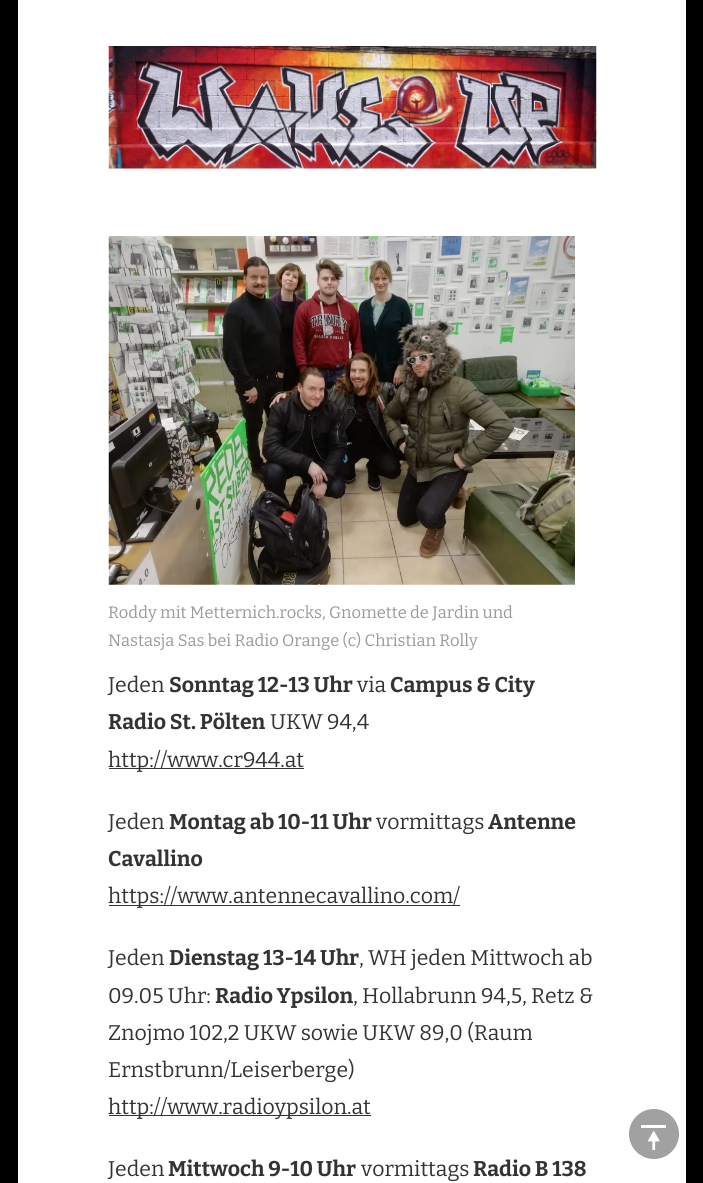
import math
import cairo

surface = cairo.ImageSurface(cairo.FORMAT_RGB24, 703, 1183)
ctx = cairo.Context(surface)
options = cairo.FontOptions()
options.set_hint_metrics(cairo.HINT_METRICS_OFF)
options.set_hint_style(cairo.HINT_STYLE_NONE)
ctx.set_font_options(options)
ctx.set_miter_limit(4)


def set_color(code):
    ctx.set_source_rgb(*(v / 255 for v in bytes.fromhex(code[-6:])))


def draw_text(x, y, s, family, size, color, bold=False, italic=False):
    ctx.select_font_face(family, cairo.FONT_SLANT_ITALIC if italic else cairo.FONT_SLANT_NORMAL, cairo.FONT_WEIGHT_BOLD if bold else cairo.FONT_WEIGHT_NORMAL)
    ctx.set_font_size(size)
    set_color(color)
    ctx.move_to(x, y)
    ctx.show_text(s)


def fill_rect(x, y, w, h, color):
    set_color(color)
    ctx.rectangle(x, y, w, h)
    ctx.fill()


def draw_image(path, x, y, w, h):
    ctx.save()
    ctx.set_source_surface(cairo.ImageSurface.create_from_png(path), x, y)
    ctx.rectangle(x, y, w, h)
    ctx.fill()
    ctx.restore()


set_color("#000000")
ctx.paint()
fill_rect(18, 0, 668, 1183, "#ffffff")
draw_image("assets/img1.png", 108, 46, 489, 123)
draw_image("assets/img2.png", 108, 236, 467, 349)
draw_text(108, 618, "Roddy mit Metternich.rocks, Gnomette de Jardin und", "Bitter", 16.5, "#999999")
draw_text(108, 646, "Nastasja Sas bei Radio Orange (c) Christian Rolly", "Bitter", 16.5, "#999999")
draw_text(108, 692, "Jeden", "Bitter", 21.25, "#333333")
draw_text(169, 692, "Sonntag 12-13 Uhr", "Bitter", 21.25, "#333333", bold=True)
draw_text(357, 692, "via", "Bitter", 21.25, "#333333")
draw_text(390, 692, "Campus & City", "Bitter", 21.25, "#333333", bold=True)
draw_text(108, 729, "Radio St. Pölten", "Bitter", 21.25, "#333333", bold=True)
draw_text(270, 729, "UKW 94,4", "Bitter", 21.25, "#333333")
fill_rect(109, 768, 195, 1, "#333333")
draw_text(108, 767, "http://www.cr944.at", "Bitter", 21.25, "#333333")
draw_text(108, 829, "Jeden", "Bitter", 21.25, "#333333")
draw_text(169, 829, "Montag ab 10-11 Uhr", "Bitter", 21.25, "#333333", bold=True)
draw_text(376, 829, "vormittags", "Bitter", 21.25, "#333333")
draw_text(488, 829, "Antenne", "Bitter", 21.25, "#333333", bold=True)
draw_text(108, 866, "Cavallino", "Bitter", 21.25, "#333333", bold=True)
fill_rect(109, 905, 351, 1, "#333333")
draw_text(108, 903, "https://www.antennecavallino.com/", "Bitter", 21.25, "#333333")
draw_text(108, 965, "Jeden", "Bitter", 21.25, "#333333")
draw_text(169, 965, "Dienstag 13-14 Uhr", "Bitter", 21.25, "#333333", bold=True)
draw_text(359, 965, ", WH jeden Mittwoch ab", "Bitter", 21.25, "#333333")
draw_text(108, 1003, "09.05 Uhr:", "Bitter", 21.25, "#333333")
draw_text(215, 1003, "Radio Ypsilon", "Bitter", 21.25, "#333333", bold=True)
draw_text(353, 1003, ", Hollabrunn 94,5, Retz &", "Bitter", 21.25, "#333333")
draw_text(108, 1040, "Znojmo 102,2 UKW sowie UKW 89,0 (Raum", "Bitter", 21.25, "#333333")
draw_text(108, 1077, "Ernstbrunn/Leiserberge)", "Bitter", 21.25, "#333333")
fill_rect(109, 1115, 262, 1, "#333333")
draw_text(108, 1114, "http://www.radioypsilon.at", "Bitter", 21.25, "#333333")
draw_text(108, 1176, "Jeden", "Bitter", 21.25, "#333333")
draw_text(168, 1176, "Mittwoch 9-10 Uhr", "Bitter", 21.25, "#333333", bold=True)
draw_text(361, 1176, "vormittags", "Bitter", 21.25, "#333333")
draw_text(473, 1176, "Radio B 138", "Bitter", 21.25, "#333333", bold=True)
set_color("#a1a1a1")
ctx.new_path()
ctx.arc(654, 1134, 25, 0, 2 * math.pi)
ctx.fill()
draw_image("assets/img3.png", 641, 1125, 25, 25)
surface.write_to_png("output.png")
